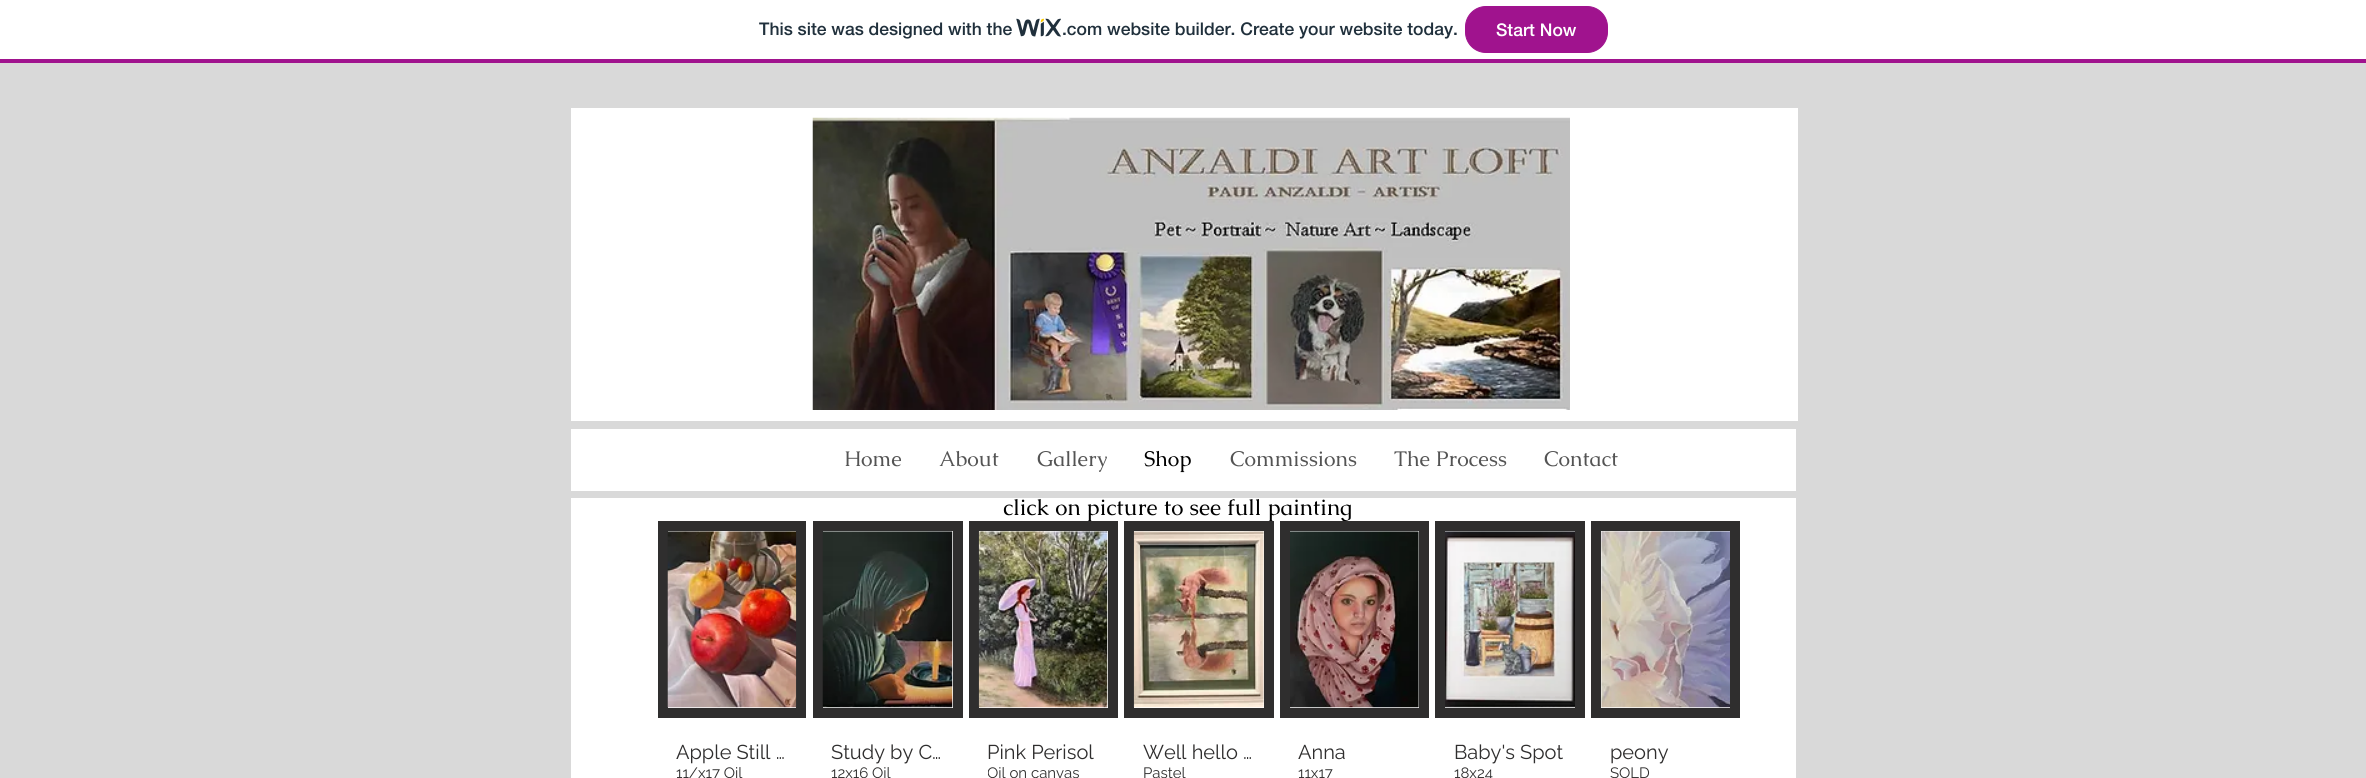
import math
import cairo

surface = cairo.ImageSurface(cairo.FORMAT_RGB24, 2366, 778)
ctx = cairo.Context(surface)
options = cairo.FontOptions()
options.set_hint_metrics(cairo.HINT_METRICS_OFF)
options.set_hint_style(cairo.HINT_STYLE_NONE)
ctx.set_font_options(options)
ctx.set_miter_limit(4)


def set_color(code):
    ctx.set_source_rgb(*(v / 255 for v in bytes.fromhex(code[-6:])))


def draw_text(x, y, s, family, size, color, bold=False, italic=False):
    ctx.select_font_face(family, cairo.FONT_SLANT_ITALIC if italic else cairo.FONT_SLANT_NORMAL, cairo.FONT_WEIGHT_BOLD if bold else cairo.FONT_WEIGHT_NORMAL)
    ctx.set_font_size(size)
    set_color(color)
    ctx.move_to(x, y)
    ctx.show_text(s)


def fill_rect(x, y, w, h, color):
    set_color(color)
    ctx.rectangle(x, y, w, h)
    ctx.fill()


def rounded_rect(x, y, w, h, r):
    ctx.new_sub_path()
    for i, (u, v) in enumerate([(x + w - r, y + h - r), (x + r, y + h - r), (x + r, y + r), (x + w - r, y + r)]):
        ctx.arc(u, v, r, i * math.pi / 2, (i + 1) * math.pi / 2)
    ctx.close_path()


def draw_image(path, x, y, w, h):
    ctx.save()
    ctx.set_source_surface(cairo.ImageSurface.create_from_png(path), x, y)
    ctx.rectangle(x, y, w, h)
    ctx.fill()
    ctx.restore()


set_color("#ffffff")
ctx.paint()
fill_rect(0, 59, 2366, 4, "#a0138e")
draw_text(759, 35, "This site was designed with the", "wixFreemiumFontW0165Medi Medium", 17.5, "#20303c")
draw_image("assets/img1.png", 1016, 18, 45, 19)
draw_text(1062, 35, ".com website builder. Create your website today.", "wixFreemiumFontW0165Medi Medium", 17.5, "#20303c")
set_color("#a0138e")
rounded_rect(1465.5, 6.5, 142, 46, 20.5)
ctx.fill_preserve()
ctx.set_line_width(1)
ctx.stroke()
draw_text(1496, 36, "Start Now", "wixFreemiumFontW0165Medi Medium", 17.5, "#ffffff")
fill_rect(0, 63, 2366, 715, "#d9d9d9")
fill_rect(571, 108, 1227, 313, "#ffffff")
draw_image("assets/img2.png", 812, 117, 758, 293)
fill_rect(571, 429, 1225, 62, "#ffffff")
draw_text(844, 466, "Home", "Caudex", 21.25, "#545454")
draw_text(939, 466, "About", "Caudex", 21.25, "#545454")
draw_text(1037, 466, "Gallery", "Caudex", 21.25, "#545454")
draw_text(1144, 466, "Shop", "Caudex", 21.25, "#000000")
draw_text(1230, 466, "Commissions", "Caudex", 21.25, "#545454")
draw_text(1394, 466, "The Process", "Caudex", 21.25, "#545454")
draw_text(1544, 466, "Contact", "Caudex", 21.25, "#545454")
fill_rect(571, 498, 1225, 280, "#ffffff")
draw_text(1003, 515, "click on picture to see full painting", "Caudex", 22.5, "#000000")
ctx.rectangle(663, 526, 138, 187)
set_color("#2f2e2e")
ctx.set_line_width(10)
ctx.stroke()
draw_image("assets/img3.png", 667, 531, 130, 177)
draw_text(676, 759, "Apple Still …", "Raleway", 20, "#2f2e2e")
draw_text(676, 778, "11/x17 Oil", "Raleway", 15, "#2f2e2e")
ctx.rectangle(818, 526, 140, 187)
ctx.stroke()
draw_image("assets/img4.png", 822, 531, 131, 177)
draw_text(831, 759, "Study by C…", "Raleway", 20, "#2f2e2e")
draw_text(831, 778, "12x16 Oil", "Raleway", 15, "#2f2e2e")
ctx.rectangle(974, 526, 139, 187)
ctx.stroke()
draw_image("assets/img5.png", 978, 531, 130, 177)
draw_text(987, 759, "Pink Perisol", "Raleway", 20, "#2f2e2e")
ctx.save()
ctx.rectangle(988, 764, 111, 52)
ctx.clip()
draw_text(987, 778, "Oil on canvas", "Raleway", 15, "#2f2e2e")
ctx.restore()
ctx.rectangle(1129, 526, 140, 187)
ctx.stroke()
draw_image("assets/img6.png", 1133, 531, 131, 177)
draw_text(1143, 759, "Well hello …", "Raleway", 20, "#2f2e2e")
draw_text(1143, 778, "Pastel", "Raleway", 15, "#2f2e2e")
ctx.rectangle(1285, 526, 139, 187)
ctx.stroke()
draw_image("assets/img7.png", 1290, 531, 129, 177)
draw_text(1298, 759, "Anna", "Raleway", 20, "#2f2e2e")
draw_text(1298, 778, "11x17", "Raleway", 15, "#2f2e2e")
ctx.rectangle(1440, 526, 140, 187)
ctx.stroke()
draw_image("assets/img8.png", 1445, 531, 130, 177)
draw_text(1454, 759, "Baby's Spot", "Raleway", 20, "#2f2e2e")
draw_text(1454, 778, "18x24", "Raleway", 15, "#2f2e2e")
ctx.rectangle(1596, 526, 139, 187)
ctx.stroke()
draw_image("assets/img9.png", 1601, 531, 129, 177)
draw_text(1610, 759, "peony", "Raleway", 20, "#2f2e2e")
draw_text(1610, 778, "SOLD", "Raleway", 15, "#2f2e2e")
surface.write_to_png("output.png")
